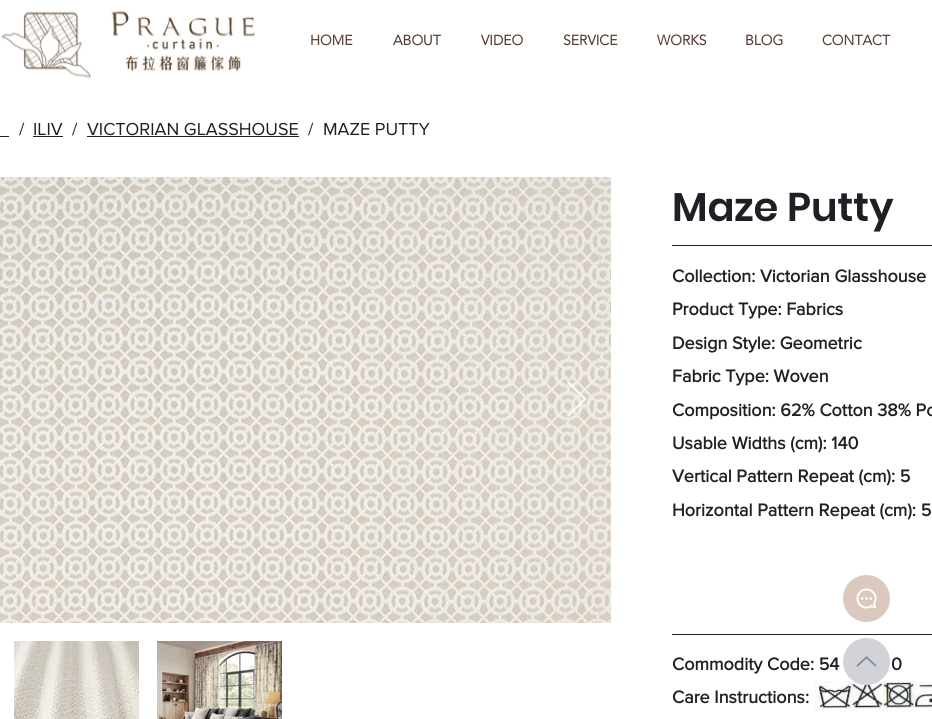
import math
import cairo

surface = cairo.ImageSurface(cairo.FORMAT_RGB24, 932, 719)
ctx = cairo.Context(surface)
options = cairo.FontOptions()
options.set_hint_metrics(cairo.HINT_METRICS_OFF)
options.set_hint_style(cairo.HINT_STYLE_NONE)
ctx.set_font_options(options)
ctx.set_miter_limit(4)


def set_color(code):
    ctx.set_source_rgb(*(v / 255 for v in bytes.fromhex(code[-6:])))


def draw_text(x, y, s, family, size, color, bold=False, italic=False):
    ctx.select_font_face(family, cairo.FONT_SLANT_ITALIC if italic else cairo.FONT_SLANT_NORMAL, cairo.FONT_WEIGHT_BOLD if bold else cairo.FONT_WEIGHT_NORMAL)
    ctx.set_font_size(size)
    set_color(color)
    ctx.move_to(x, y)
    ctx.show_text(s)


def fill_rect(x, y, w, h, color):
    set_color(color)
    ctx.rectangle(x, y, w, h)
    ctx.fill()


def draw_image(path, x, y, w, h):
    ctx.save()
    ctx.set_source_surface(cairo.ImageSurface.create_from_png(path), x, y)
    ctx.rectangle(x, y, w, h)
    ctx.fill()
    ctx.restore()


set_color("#ffffff")
ctx.paint()
draw_image("assets/img1.png", 1, 10, 254, 69)
draw_text(310, 45, "HOME", "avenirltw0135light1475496", 14, "#583e31", bold=True)
draw_text(393, 45, "ABOUT", "avenirltw0135light1475496", 14, "#583e31", bold=True)
draw_text(481, 45, "VIDEO", "avenirltw0135light1475496", 14, "#583e31", bold=True)
draw_text(563, 45, "SERVICE", "avenirltw0135light1475496", 14, "#583e31", bold=True)
draw_text(657, 45, "WORKS", "avenirltw0135light1475496", 14, "#583e31", bold=True)
draw_text(745, 45, "BLOG", "avenirltw0135light1475496", 14, "#583e31", bold=True)
draw_text(822, 45, "CONTACT", "avenirltw0135light1475496", 14, "#583e31", bold=True)
draw_text(19, 135, "/", "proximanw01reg", 18, "#1e2025")
fill_rect(0, 136, 9, 1, "#1e2025")
draw_text(33, 135, "ILIV", "proximanw01reg", 18, "#1e2025")
fill_rect(33, 136, 30, 1, "#1e2025")
draw_text(72, 135, "/", "proximanw01reg", 18, "#1e2025")
draw_text(87, 135, "VICTORIAN GLASSHOUSE", "proximanw01reg", 18, "#1e2025")
fill_rect(87, 136, 212, 1, "#1e2025")
draw_text(308, 135, "/", "proximanw01reg", 18, "#1e2025")
draw_text(323, 135, "MAZE PUTTY", "proximanw01reg", 18, "#1e2025")
draw_image("assets/img2.png", 0, 177, 611, 446)
ctx.set_source_rgba(1, 1, 1, 0.9)
ctx.new_path()
ctx.move_to(567, 382.5)
ctx.line_to(568.5, 381)
ctx.line_to(586.5, 399)
ctx.line_to(568.5, 417)
ctx.line_to(567, 415.5)
ctx.line_to(583.5, 399)
ctx.close_path()
ctx.fill()
draw_image("assets/img3.png", 14, 641, 125, 78)
draw_image("assets/img4.png", 157, 641, 125, 78)
draw_text(672, 221, "Maze Putty", "Poppins SemiBold", 40, "#1e2025")
fill_rect(672, 245, 260, 1, "#1e2025")
draw_text(672, 282, "Collection: Victorian Glasshouse", "proximanw01reg", 18, "#1e2025", bold=True)
draw_text(672, 315, "Product Type: Fabrics", "proximanw01reg", 18, "#1e2025", bold=True)
draw_text(672, 349, "Design Style: Geometric", "proximanw01reg", 18, "#1e2025", bold=True)
draw_text(672, 382, "Fabric Type: Woven", "proximanw01reg", 18, "#1e2025", bold=True)
draw_text(672, 416, "Composition: 62% Cotton 38% Po", "proximanw01reg", 18, "#1e2025", bold=True)
draw_text(672, 449, "Usable Widths (cm): 140", "proximanw01reg", 18, "#1e2025", bold=True)
draw_text(672, 482, "Vertical Pattern Repeat (cm): 5", "proximanw01reg", 18, "#1e2025", bold=True)
draw_text(672, 516, "Horizontal Pattern Repeat (cm): 5", "proximanw01reg", 18, "#1e2025", bold=True)
fill_rect(672, 634, 260, 1, "#1e2025")
draw_text(672, 670, "Commodity Code: 54", "proximanw01reg", 18, "#1e2025", bold=True)
draw_text(891, 670, "0", "proximanw01reg", 18, "#1e2025", bold=True)
draw_text(672, 703, "Care Instructions:", "proximanw01reg", 18, "#1e2025", bold=True)
draw_image("assets/img5.png", 814, 681, 118, 30)
set_color("#dbc8be")
ctx.arc(866.5, 598.5, 23.5, 0, 2 * math.pi)
ctx.fill()
draw_image("assets/img6.png", 856, 588, 21, 21)
set_color("#d1d3d8")
ctx.arc(866.5, 661.5, 23.5, 0, 2 * math.pi)
ctx.fill()
draw_image("assets/img7.png", 856, 656, 21, 11)
surface.write_to_png("output.png")
